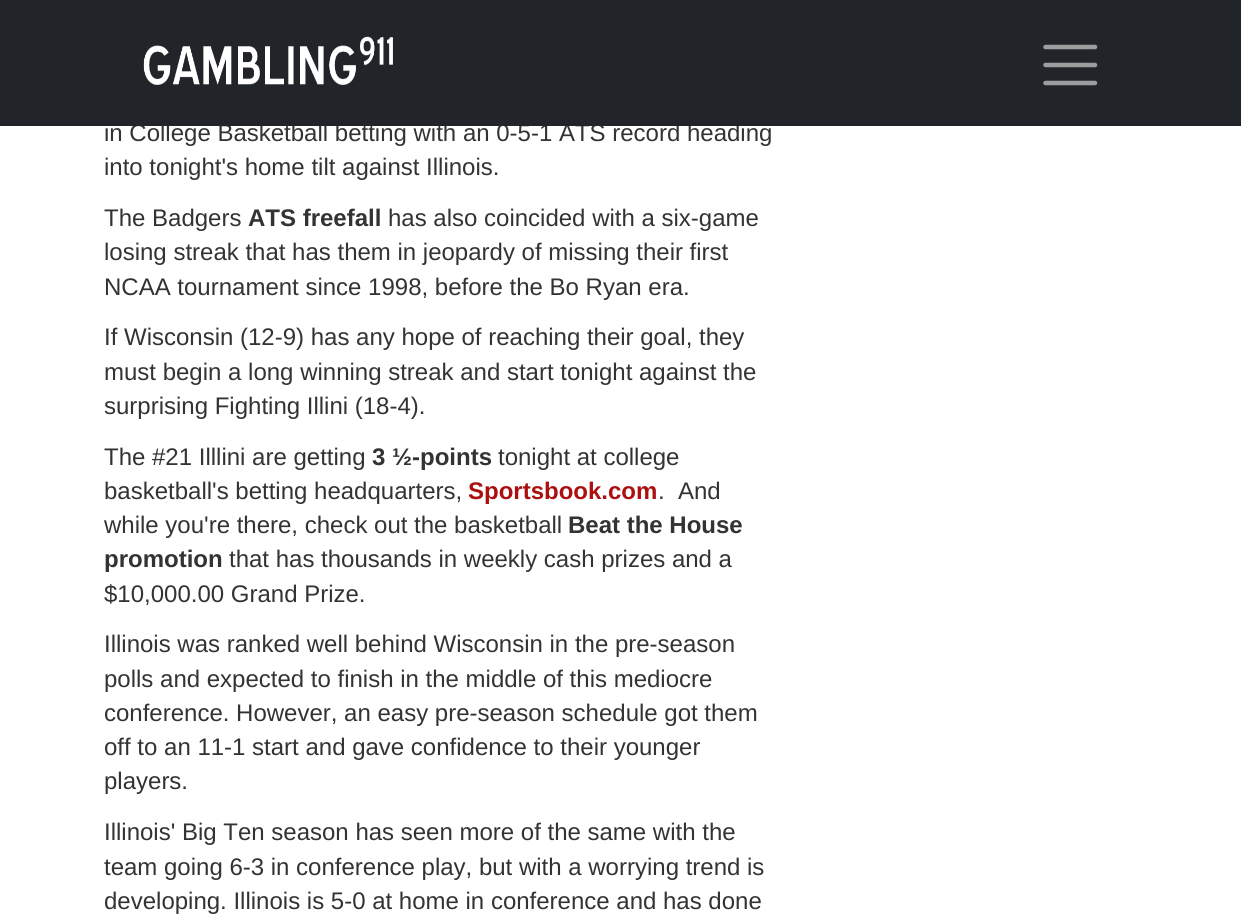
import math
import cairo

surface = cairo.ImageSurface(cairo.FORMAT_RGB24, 1241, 914)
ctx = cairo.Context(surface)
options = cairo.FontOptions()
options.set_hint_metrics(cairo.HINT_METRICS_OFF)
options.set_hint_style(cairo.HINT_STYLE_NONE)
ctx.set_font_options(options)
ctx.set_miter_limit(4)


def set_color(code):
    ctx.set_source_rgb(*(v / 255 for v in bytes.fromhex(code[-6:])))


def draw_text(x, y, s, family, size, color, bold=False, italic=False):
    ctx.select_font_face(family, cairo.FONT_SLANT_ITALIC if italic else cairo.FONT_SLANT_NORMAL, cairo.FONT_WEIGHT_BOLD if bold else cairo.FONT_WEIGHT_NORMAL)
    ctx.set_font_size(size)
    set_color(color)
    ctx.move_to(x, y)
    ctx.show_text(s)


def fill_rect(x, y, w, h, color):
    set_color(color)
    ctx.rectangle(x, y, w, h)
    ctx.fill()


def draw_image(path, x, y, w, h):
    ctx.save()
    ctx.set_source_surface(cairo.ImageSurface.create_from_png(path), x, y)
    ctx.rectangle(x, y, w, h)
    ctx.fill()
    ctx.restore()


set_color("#ffffff")
ctx.paint()
draw_text(104, 141, "in College Basketball betting with an 0-5-1 ATS record heading", "Liberation Sans", 24, "#333333")
fill_rect(0, 0, 1241, 126, "#212529")
draw_image("assets/img1.png", 143, 36, 250, 49)
ctx.new_path()
ctx.move_to(1045.5, 47)
ctx.line_to(1095, 47)
ctx.move_to(1045.5, 65)
ctx.line_to(1095, 65)
ctx.move_to(1045.5, 83)
ctx.line_to(1095, 83)
set_color("#9b9d9f")
ctx.set_line_width(4.5)
ctx.set_line_cap(cairo.LINE_CAP_ROUND)
ctx.stroke()
draw_text(104, 175, "into tonight's home tilt against Illinois.", "Liberation Sans", 24, "#333333")
draw_text(104, 226, "The Badgers", "Liberation Sans", 24, "#333333")
draw_text(248, 226, "ATS freefall", "Liberation Sans", 24, "#333333", bold=True)
draw_text(388, 226, "has also coincided with a six-game", "Liberation Sans", 24, "#333333")
draw_text(104, 260, "losing streak that has them in jeopardy of missing their first", "Liberation Sans", 24, "#333333")
draw_text(104, 295, "NCAA tournament since 1998, before the Bo Ryan era.", "Liberation Sans", 24, "#333333")
draw_text(104, 345, "If Wisconsin (12-9) has any hope of reaching their goal, they", "Liberation Sans", 24, "#333333")
draw_text(104, 380, "must begin a long winning streak and start tonight against the", "Liberation Sans", 24, "#333333")
draw_text(104, 414, "surprising Fighting Illini (18-4).", "Liberation Sans", 24, "#333333")
draw_text(104, 465, "The #21 Illlini are getting", "Liberation Sans", 24, "#333333")
draw_text(372, 465, "3 ½-points", "Liberation Sans", 24, "#333333", bold=True)
draw_text(498, 465, "tonight at college", "Liberation Sans", 24, "#333333")
draw_text(104, 499, "basketball's betting headquarters,", "Liberation Sans", 24, "#333333")
draw_text(468, 499, "Sportsbook.com", "Liberation Sans", 24, "#ac0f0f", bold=True)
draw_text(658, 499, ".  And", "Liberation Sans", 24, "#333333")
draw_text(104, 533, "while you're there, check out the basketball", "Liberation Sans", 24, "#333333")
draw_text(568, 533, "Beat the House", "Liberation Sans", 24, "#333333", bold=True)
draw_text(104, 567, "promotion", "Liberation Sans", 24, "#333333", bold=True)
draw_text(229, 567, "that has thousands in weekly cash prizes and a", "Liberation Sans", 24, "#333333")
draw_text(104, 602, "$10,000.00 Grand Prize.", "Liberation Sans", 24, "#333333")
draw_text(104, 652, "Illinois was ranked well behind Wisconsin in the pre-season", "Liberation Sans", 24, "#333333")
draw_text(104, 687, "polls and expected to finish in the middle of this mediocre", "Liberation Sans", 24, "#333333")
draw_text(104, 721, "conference. However, an easy pre-season schedule got them", "Liberation Sans", 24, "#333333")
draw_text(104, 755, "off to an 11-1 start and gave confidence to their younger", "Liberation Sans", 24, "#333333")
draw_text(104, 789, "players.", "Liberation Sans", 24, "#333333")
draw_text(104, 840, "Illinois' Big Ten season has seen more of the same with the", "Liberation Sans", 24, "#333333")
draw_text(104, 875, "team going 6-3 in conference play, but with a worrying trend is", "Liberation Sans", 24, "#333333")
draw_text(104, 909, "developing. Illinois is 5-0 at home in conference and has done", "Liberation Sans", 24, "#333333")
surface.write_to_png("output.png")
